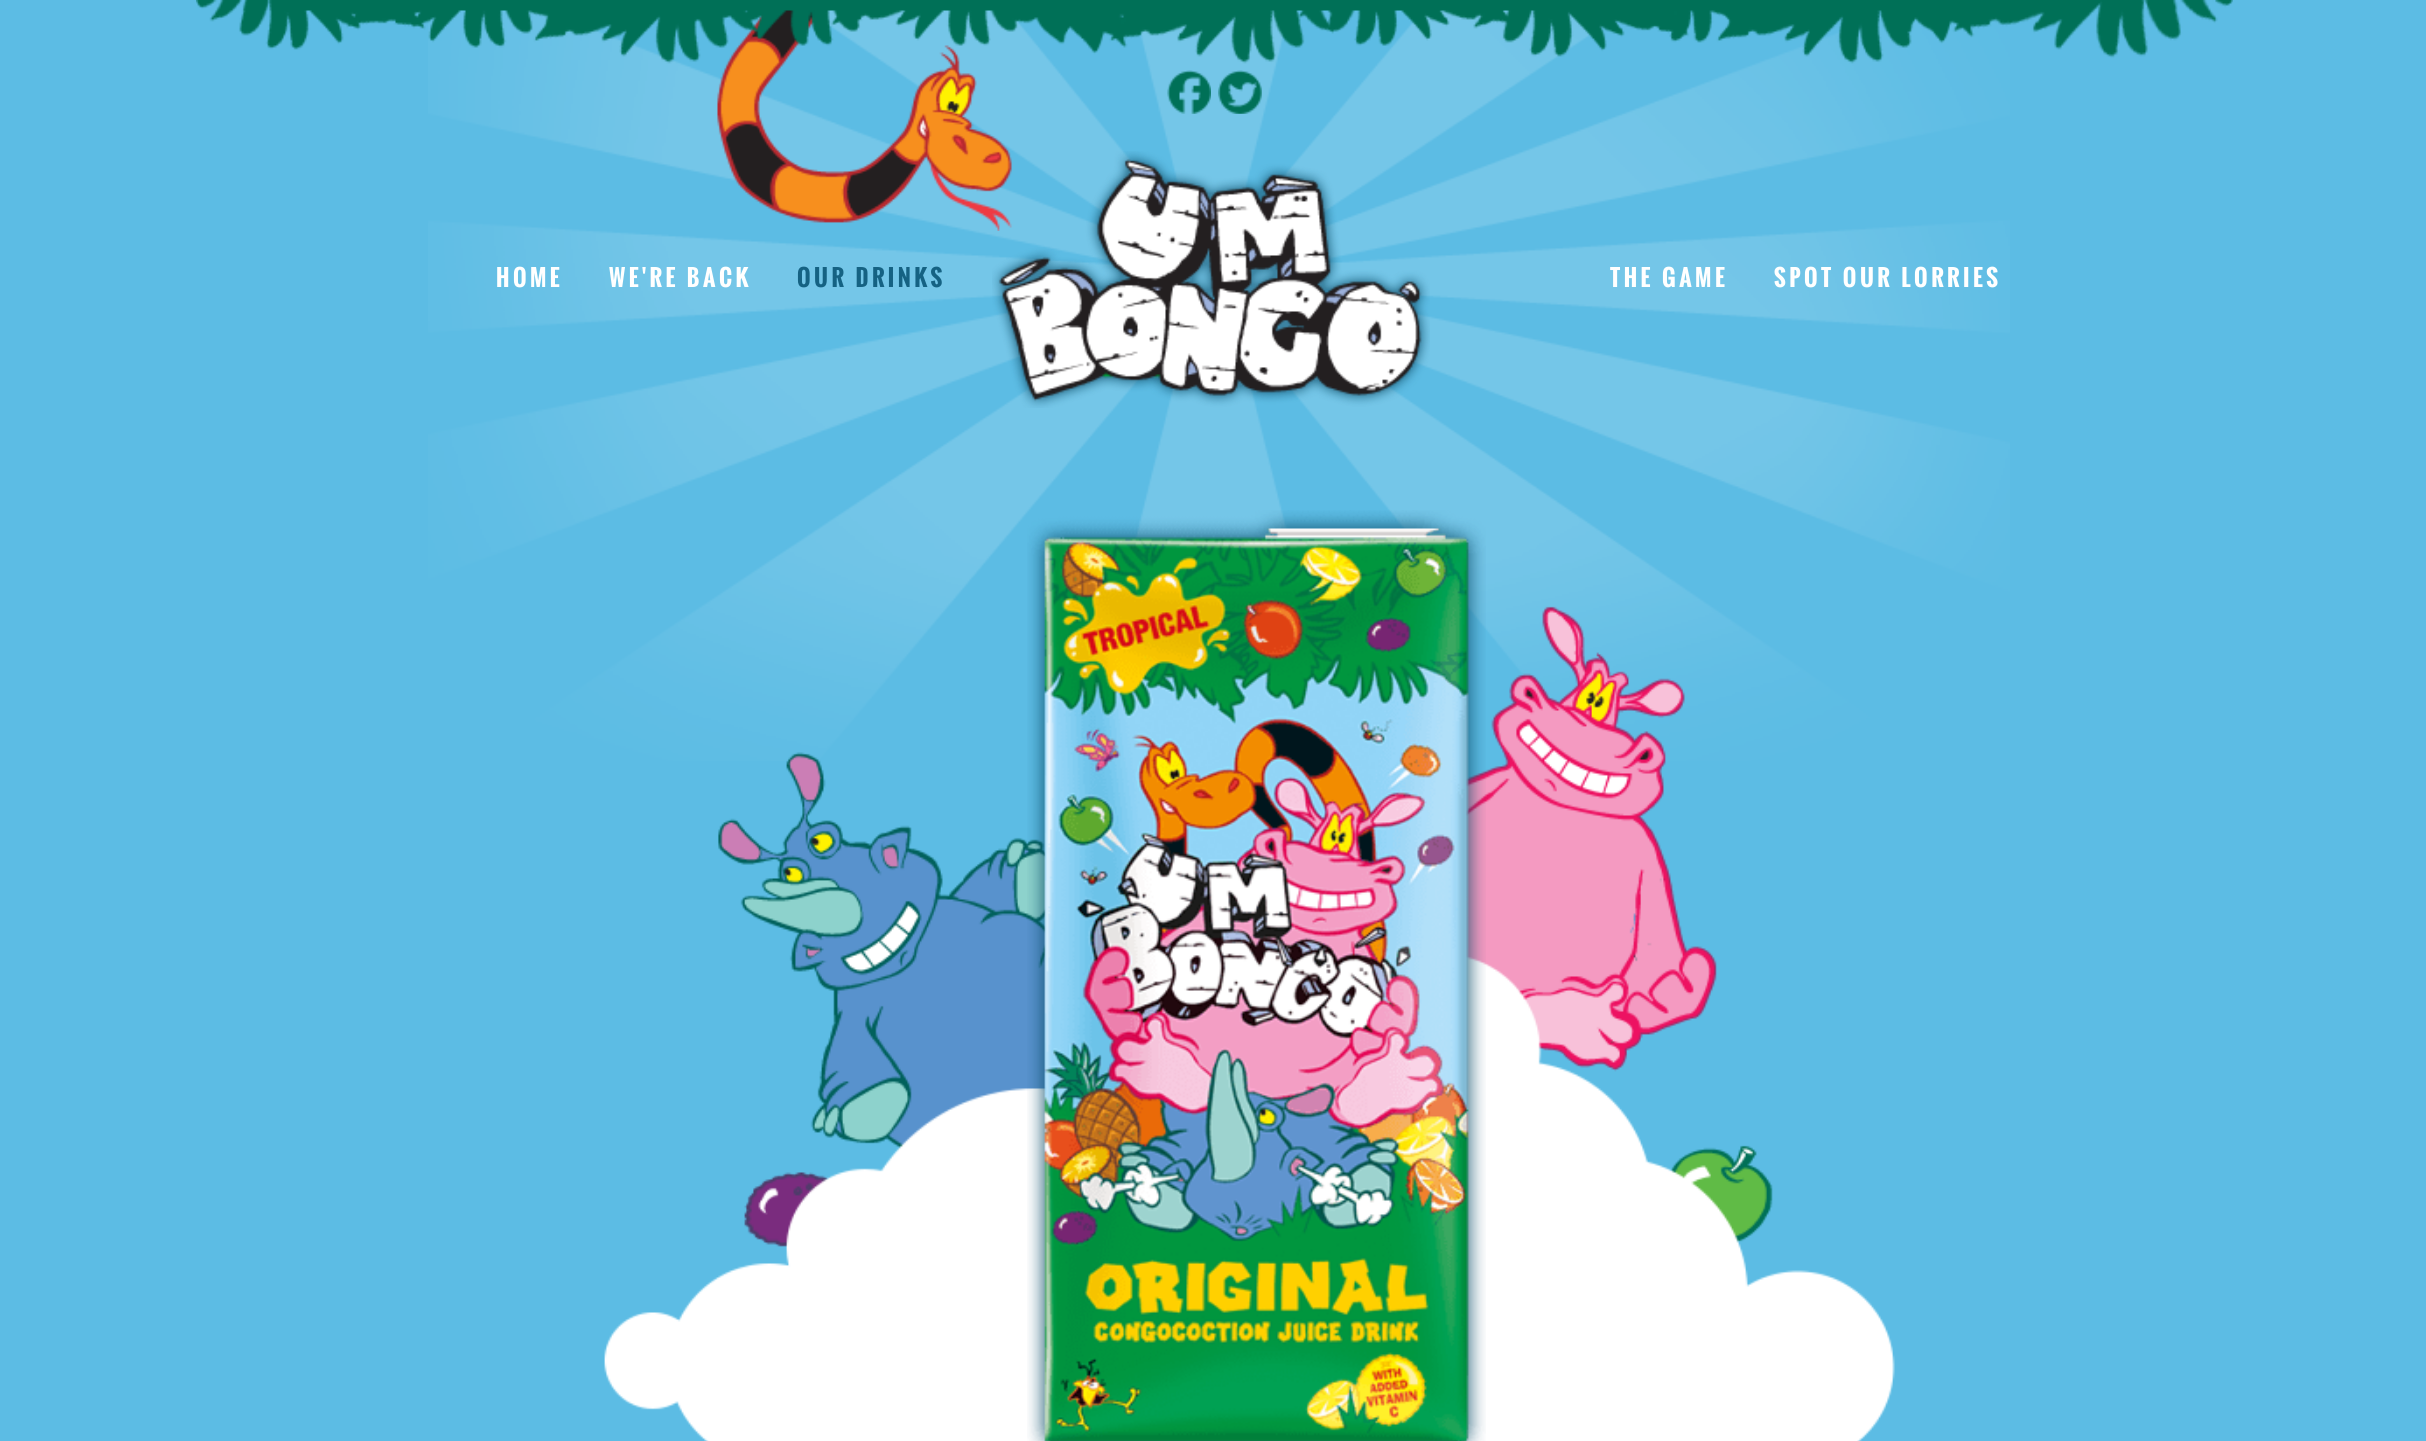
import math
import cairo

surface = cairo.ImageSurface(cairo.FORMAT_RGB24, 2426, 1441)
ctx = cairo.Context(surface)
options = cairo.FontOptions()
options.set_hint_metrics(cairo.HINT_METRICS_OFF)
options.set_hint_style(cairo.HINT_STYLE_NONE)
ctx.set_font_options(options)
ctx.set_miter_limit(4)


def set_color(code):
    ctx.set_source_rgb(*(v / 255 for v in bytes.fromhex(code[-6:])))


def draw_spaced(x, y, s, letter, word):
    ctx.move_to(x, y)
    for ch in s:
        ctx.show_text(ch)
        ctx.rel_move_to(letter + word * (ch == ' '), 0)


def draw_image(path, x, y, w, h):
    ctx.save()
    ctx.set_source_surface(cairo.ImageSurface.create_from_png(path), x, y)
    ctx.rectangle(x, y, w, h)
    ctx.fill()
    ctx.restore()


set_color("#5cbce4")
ctx.paint()
draw_image("assets/img1.png", 428, 10, 1582, 751)
draw_image("assets/img2.png", 196, 0, 2037, 231)
draw_image("assets/img3.png", 1167, 70, 44, 44)
draw_image("assets/img4.png", 1218, 70, 44, 44)
ctx.select_font_face("Oswald", cairo.FONT_SLANT_NORMAL, cairo.FONT_WEIGHT_BOLD)
ctx.set_font_size(22.75)
set_color("#ffffff")
draw_spaced(496, 287, "HOME", 3.5, 0)
draw_spaced(609, 287, "WE'RE BACK", 3.5, 0)
set_color("#156283")
draw_spaced(797, 287, "OUR DRINKS", 3.5, 0)
draw_image("assets/img5.png", 992, 151, 438, 257)
set_color("#ffffff")
draw_spaced(1610, 287, "THE GAME", 3.5, 0)
draw_spaced(1774, 287, "SPOT OUR LORRIES", 3.5, 0)
draw_image("assets/img6.png", 604, 606, 1291, 835)
draw_image("assets/img7.png", 1027, 510, 459, 931)
surface.write_to_png("output.png")
